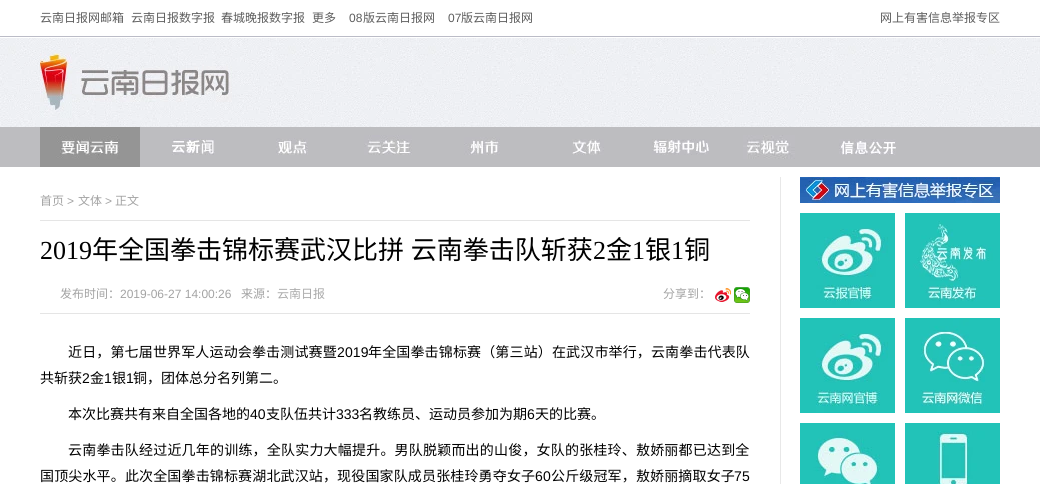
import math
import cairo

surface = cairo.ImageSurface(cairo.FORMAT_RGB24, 1040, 484)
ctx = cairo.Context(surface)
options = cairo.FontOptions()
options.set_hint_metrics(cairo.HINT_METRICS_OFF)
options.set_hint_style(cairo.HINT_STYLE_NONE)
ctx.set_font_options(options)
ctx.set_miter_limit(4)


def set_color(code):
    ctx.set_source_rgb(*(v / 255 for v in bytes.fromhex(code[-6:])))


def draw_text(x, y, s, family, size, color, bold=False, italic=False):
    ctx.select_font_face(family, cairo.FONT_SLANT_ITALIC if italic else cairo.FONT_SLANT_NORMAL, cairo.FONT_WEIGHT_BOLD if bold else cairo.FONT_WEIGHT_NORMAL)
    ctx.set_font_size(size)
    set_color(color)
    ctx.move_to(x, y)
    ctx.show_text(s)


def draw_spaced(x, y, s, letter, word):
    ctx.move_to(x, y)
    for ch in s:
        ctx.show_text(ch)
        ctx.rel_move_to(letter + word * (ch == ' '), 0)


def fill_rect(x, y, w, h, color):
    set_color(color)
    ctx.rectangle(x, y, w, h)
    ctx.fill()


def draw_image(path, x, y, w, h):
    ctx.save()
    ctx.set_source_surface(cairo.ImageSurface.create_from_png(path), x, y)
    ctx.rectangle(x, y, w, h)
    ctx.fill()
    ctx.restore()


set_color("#ffffff")
ctx.paint()
fill_rect(0, 36, 1040, 1, "#bbbcc7")
draw_text(40, 22, "云南日报网邮箱", "Noto Sans CJK SC", 12, "#5c5c5c")
draw_text(131, 22, "云南日报数字报", "Noto Sans CJK SC", 12, "#5c5c5c")
draw_text(221, 22, "春城晚报数字报", "Noto Sans CJK SC", 12, "#5c5c5c")
draw_text(312, 22, "更多", "Noto Sans CJK SC", 12, "#5c5c5c")
draw_text(349, 22, "08", "Liberation Sans", 12, "#5c5c5c")
draw_text(363, 22, "版云南日报网", "Noto Sans CJK SC", 12, "#5c5c5c")
draw_text(448, 22, "07", "Liberation Sans", 12, "#5c5c5c")
draw_text(461, 22, "版云南日报网", "Noto Sans CJK SC", 12, "#5c5c5c")
draw_text(880, 22, "网上有害信息举报专区", "Noto Sans CJK SC", 12, "#5c5c5c")
draw_image("assets/img1.png", 0, 38, 1040, 89)
draw_image("assets/img2.png", 40, 38, 197, 89)
fill_rect(0, 127, 1040, 40, "#bdbdc0")
draw_image("assets/img3.png", 40, 127, 100, 40)
draw_image("assets/img4.png", 172, 138, 43, 17)
draw_image("assets/img5.png", 276, 138, 32, 17)
draw_image("assets/img6.png", 364, 135, 48, 20)
draw_image("assets/img7.png", 464, 137, 36, 18)
draw_image("assets/img8.png", 572, 139, 32, 16)
draw_image("assets/img9.png", 652, 139, 57, 16)
draw_image("assets/img10.png", 743, 135, 52, 24)
draw_image("assets/img11.png", 839, 139, 57, 16)
fill_rect(780, 177, 1, 307, "#e8e8e8")
fill_rect(40, 220, 710, 1, "#e5e5e5")
draw_text(40, 205, "首页", "Noto Sans CJK SC", 12, "#a3a3a3")
draw_text(67, 205, ">", "Liberation Sans", 12, "#a3a3a3")
draw_text(78, 205, "文体", "Noto Sans CJK SC", 12, "#a3a3a3")
draw_text(105, 205, ">", "Liberation Sans", 12, "#a3a3a3")
draw_text(115, 205, "正文", "Noto Sans CJK SC", 12, "#a3a3a3")
draw_text(40, 259, "2019", "Liberation Serif", 26, "#000000")
ctx.select_font_face("Noto Sans CJK SC")
draw_spaced(92, 259, "年全国拳击锦标赛武汉比拼 云南拳击队斩获", 0, 1)
draw_text(593, 259, "2", "Liberation Serif", 26, "#000000")
draw_text(606, 259, "金", "Noto Sans CJK SC", 26, "#000000")
draw_text(632, 259, "1", "Liberation Serif", 26, "#000000")
draw_text(645, 259, "银", "Noto Sans CJK SC", 26, "#000000")
draw_text(671, 259, "1", "Liberation Serif", 26, "#000000")
draw_text(684, 259, "铜", "Noto Sans CJK SC", 26, "#000000")
fill_rect(40, 313, 710, 1, "#e5e5e5")
draw_text(60, 298, "发布时间：", "Noto Sans CJK SC", 12, "#a3a3a3")
draw_text(120, 298, "2019-06-27 14:00:26", "Liberation Sans", 12, "#a3a3a3")
draw_text(241, 298, "来源：", "Noto Sans CJK SC", 12, "#a3a3a3")
draw_text(277, 298, "云南日报", "Noto Sans CJK SC", 12, "#aaaaaa")
draw_text(663, 298, "分享到：", "Noto Sans CJK SC", 12, "#a3a3a3")
draw_image("assets/img12.png", 715, 287, 16, 15)
draw_image("assets/img13.png", 734, 287, 16, 16)
ctx.set_font_size(14)
set_color("#000000")
draw_spaced(68, 357, "近日，第七届世界军人运动会拳击测试赛暨", 0.15, 0)
ctx.select_font_face("Liberation Sans")
draw_spaced(337, 357, "2019", 0.15, 0)
ctx.select_font_face("Noto Sans CJK SC")
draw_spaced(368, 357, "年全国拳击锦标赛（第三站）在武汉市举行，云南拳击代表队", 0.15, 0)
draw_text(40, 383, "共斩获", "Noto Sans CJK SC", 14, "#000000")
draw_text(82, 383, "2", "Liberation Sans", 14, "#000000")
draw_text(90, 383, "金", "Noto Sans CJK SC", 14, "#000000")
draw_text(104, 383, "1", "Liberation Sans", 14, "#000000")
draw_text(112, 383, "银", "Noto Sans CJK SC", 14, "#000000")
draw_text(126, 383, "1", "Liberation Sans", 14, "#000000")
draw_text(133, 383, "铜，团体总分名列第二。", "Noto Sans CJK SC", 14, "#000000")
draw_text(68, 419, "本次比赛共有来自全国各地的", "Noto Sans CJK SC", 14, "#000000")
draw_text(250, 419, "40", "Liberation Sans", 14, "#000000")
draw_text(266, 419, "支队伍共计", "Noto Sans CJK SC", 14, "#000000")
draw_text(336, 419, "333", "Liberation Sans", 14, "#000000")
draw_text(359, 419, "名教练员、运动员参加为期", "Noto Sans CJK SC", 14, "#000000")
draw_text(527, 419, "6", "Liberation Sans", 14, "#000000")
draw_text(535, 419, "天的比赛。", "Noto Sans CJK SC", 14, "#000000")
draw_spaced(68, 455, "云南拳击队经过近几年的训练，全队实力大幅提升。男队脱颖而出的山俊，女队的张桂玲、敖娇丽都已达到全", 0.2, 0)
draw_spaced(40, 481, "国顶尖水平。此次全国拳击锦标赛湖北武汉站，现役国家队成员张桂玲勇夺女子", 0.15, 0)
ctx.select_font_face("Liberation Sans")
draw_spaced(535, 481, "60", 0.15, 0)
ctx.select_font_face("Noto Sans CJK SC")
draw_spaced(551, 481, "公斤级冠军，敖娇丽摘取女子", 0.15, 0)
ctx.select_font_face("Liberation Sans")
draw_spaced(734, 481, "75", 0.15, 0)
draw_image("assets/img14.png", 800, 177, 200, 26)
draw_image("assets/img15.png", 800, 213, 95, 95)
draw_image("assets/img16.png", 905, 213, 95, 95)
draw_image("assets/img17.png", 800, 318, 95, 95)
draw_image("assets/img18.png", 905, 318, 95, 95)
draw_image("assets/img19.png", 800, 423, 95, 61)
draw_image("assets/img20.png", 905, 423, 95, 61)
surface.write_to_png("output.png")
